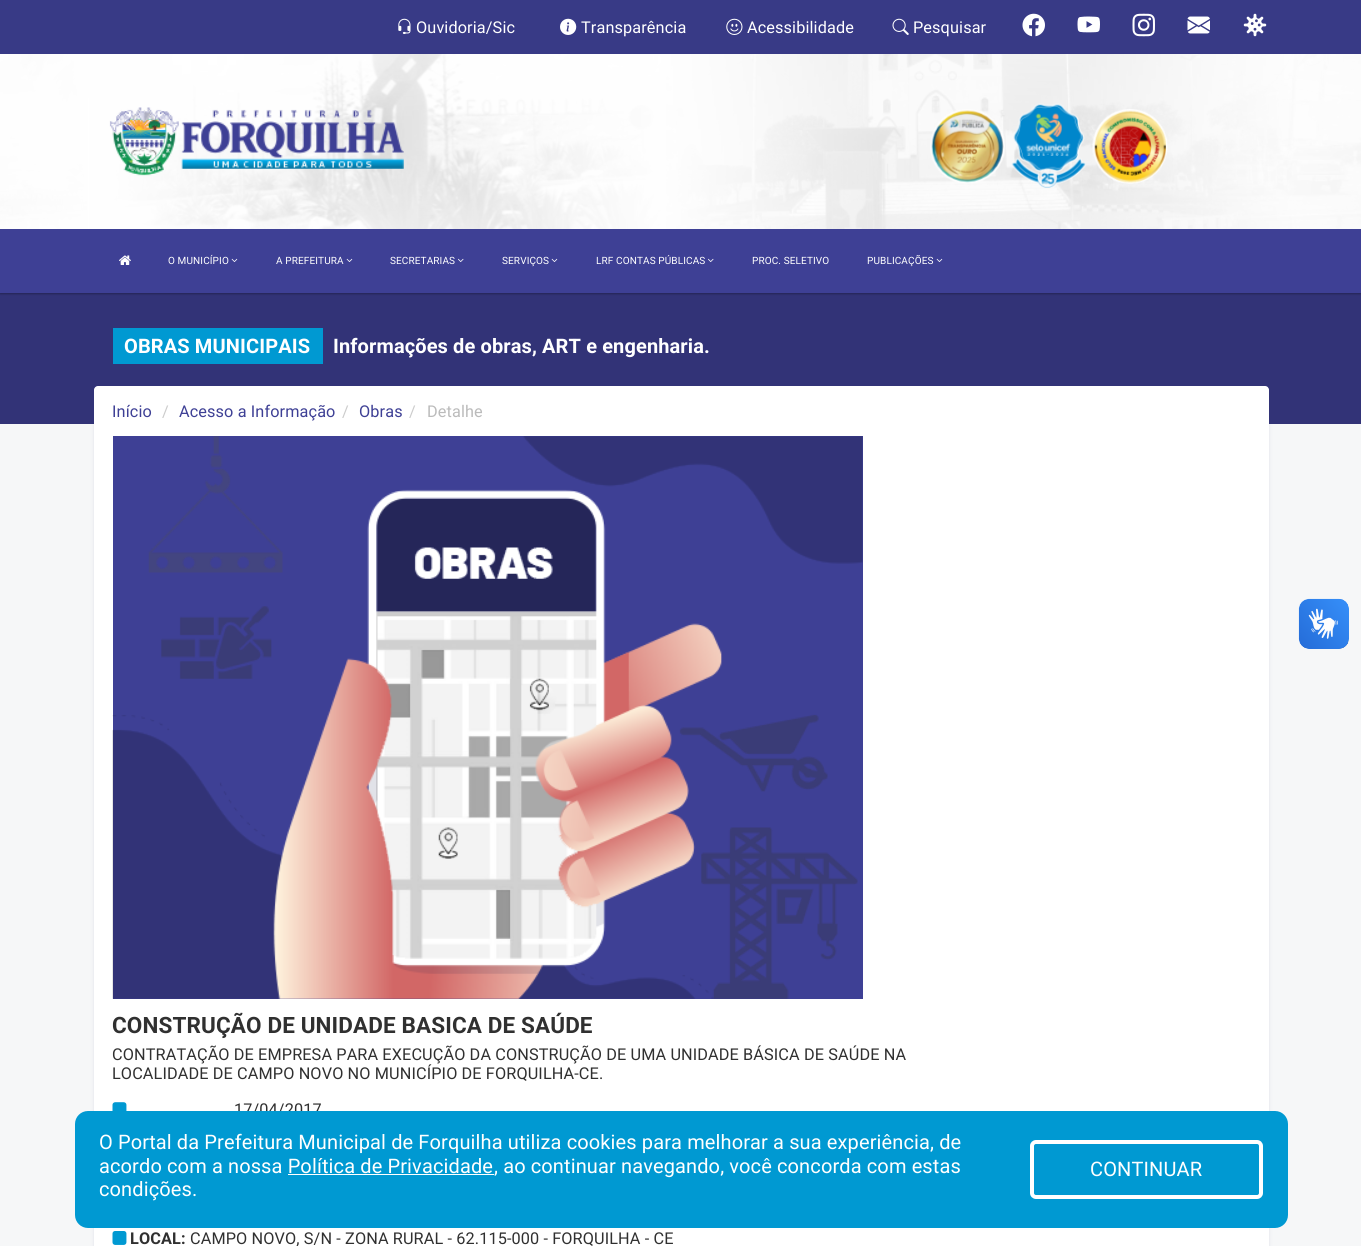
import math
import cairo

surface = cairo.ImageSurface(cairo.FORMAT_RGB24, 1361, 1246)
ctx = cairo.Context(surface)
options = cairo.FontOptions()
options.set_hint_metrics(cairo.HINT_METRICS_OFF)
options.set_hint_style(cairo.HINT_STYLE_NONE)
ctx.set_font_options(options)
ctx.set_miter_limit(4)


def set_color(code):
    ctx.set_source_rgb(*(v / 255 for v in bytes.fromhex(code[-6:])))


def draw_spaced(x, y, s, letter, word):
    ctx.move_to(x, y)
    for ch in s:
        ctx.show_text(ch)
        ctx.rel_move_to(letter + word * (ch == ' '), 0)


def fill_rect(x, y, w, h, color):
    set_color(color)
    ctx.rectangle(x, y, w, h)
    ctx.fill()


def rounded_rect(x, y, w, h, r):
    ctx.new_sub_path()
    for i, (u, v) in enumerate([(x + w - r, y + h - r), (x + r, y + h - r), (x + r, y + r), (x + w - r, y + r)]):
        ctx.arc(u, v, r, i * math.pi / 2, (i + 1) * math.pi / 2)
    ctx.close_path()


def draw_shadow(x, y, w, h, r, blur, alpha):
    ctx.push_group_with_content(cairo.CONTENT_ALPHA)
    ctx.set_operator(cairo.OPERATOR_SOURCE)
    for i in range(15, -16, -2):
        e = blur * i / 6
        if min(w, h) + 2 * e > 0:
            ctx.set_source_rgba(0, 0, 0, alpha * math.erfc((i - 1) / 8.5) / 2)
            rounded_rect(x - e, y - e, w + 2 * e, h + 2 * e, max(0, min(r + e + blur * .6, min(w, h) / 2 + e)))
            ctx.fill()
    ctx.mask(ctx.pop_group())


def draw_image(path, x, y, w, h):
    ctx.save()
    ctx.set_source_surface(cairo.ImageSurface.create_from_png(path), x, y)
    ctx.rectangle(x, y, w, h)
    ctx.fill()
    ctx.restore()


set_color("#f6f7f8")
ctx.paint()
set_color("#030047")
draw_shadow(94, 388, 1175, 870, 6, 2, 0.09)
fill_rect(0, 293, 1361, 131, "#323377")
set_color("#000000")
draw_shadow(0, 1, 1361, 293, 0, 1, 0.3)
draw_image("assets/img1.png", 0, 54, 1361, 175)
fill_rect(0, 0, 1361, 54, "#383a86")
draw_image("assets/img2.png", 398, 18, 13, 16)
ctx.select_font_face("Roboto")
ctx.set_font_size(16.25)
set_color("#ffffff")
draw_spaced(416, 33, "Ouvidoria/Sic", 0.12, 0)
draw_image("assets/img3.png", 560, 18, 17, 17)
draw_spaced(581, 33, "Transparência", 0.12, 0)
draw_image("assets/img4.png", 726, 18, 17, 17)
draw_spaced(747, 33, "Acessibilidade", 0.12, 0)
draw_image("assets/img5.png", 892, 18, 17, 17)
draw_spaced(913, 33, "Pesquisar", 0.12, 0)
draw_image("assets/img6.png", 1022, 13, 23, 24)
draw_image("assets/img7.png", 1077, 16, 23, 17)
draw_image("assets/img8.png", 1132, 13, 23, 24)
draw_image("assets/img9.png", 1187, 16, 23, 18)
draw_image("assets/img10.png", 1243, 13, 24, 24)
draw_image("assets/img11.png", 109, 107, 295, 69)
draw_image("assets/img12.png", 930, 109, 75, 74)
draw_image("assets/img13.png", 1011, 103, 75, 85)
draw_image("assets/img14.png", 1092, 109, 76, 75)
fill_rect(0, 229, 1361, 64, "#3e4095")
draw_image("assets/img15.png", 119, 255, 12, 10)
ctx.set_font_size(10)
set_color("#ffffff")
draw_spaced(168, 264, "O MUNICÍPIO", 0.12, 0)
draw_image("assets/img16.png", 231, 258, 7, 4)
draw_spaced(276, 264, "A PREFEITURA", 0.12, 0)
draw_image("assets/img16.png", 346, 258, 7, 4)
draw_spaced(390, 264, "SECRETARIAS", 0.12, 0)
draw_image("assets/img17.png", 458, 258, 6, 4)
draw_spaced(502, 264, "SERVIÇOS", 0.12, 0)
draw_image("assets/img16.png", 551, 258, 7, 4)
draw_spaced(596, 264, "LRF CONTAS PÚBLICAS", 0.12, 0)
draw_image("assets/img17.png", 708, 258, 6, 4)
draw_spaced(752, 264, "PROC. SELETIVO", 0.12, 0)
draw_spaced(867, 264, "PUBLICAÇÕES", 0.12, 0)
draw_image("assets/img16.png", 936, 258, 7, 4)
fill_rect(113, 328, 210, 36, "#0099d2")
ctx.select_font_face("Roboto", cairo.FONT_SLANT_NORMAL, cairo.FONT_WEIGHT_BOLD)
ctx.set_font_size(20)
set_color("#ffffff")
draw_spaced(124, 353, "OBRAS MUNICIPAIS", 0.12, 0)
draw_spaced(333, 353, "Informações de obras, ART e engenharia.", 0.12, 0)
fill_rect(94, 432, 1175, 814, "#ffffff")
rounded_rect(94, 386, 1175, 50, 4)
ctx.fill()
ctx.select_font_face("Roboto")
ctx.set_font_size(16.25)
set_color("#3e4095")
draw_spaced(112, 417, "Início", 0.12, 0)
set_color("#cccccc")
draw_spaced(162, 417, "/", 0.12, 0)
set_color("#3e4095")
draw_spaced(179, 417, "Acesso a Informação", 0.12, 0)
set_color("#cccccc")
draw_spaced(342, 417, "/", 0.12, 0)
set_color("#3e4095")
draw_spaced(359, 417, "Obras", 0.12, 0)
set_color("#cccccc")
draw_spaced(409, 417, "/", 0.12, 0)
set_color("#bbbbbb")
draw_spaced(427, 417, "Detalhe", 0.12, 0)
fill_rect(113, 436, 750, 563, "#3e4095")
draw_image("assets/img18.png", 112, 436, 751, 563)
ctx.select_font_face("Roboto", cairo.FONT_SLANT_NORMAL, cairo.FONT_WEIGHT_BOLD)
ctx.set_font_size(22.5)
set_color("#303030")
draw_spaced(112, 1033, "CONSTRUÇÃO DE UNIDADE BASICA DE SAÚDE", 0.12, 0)
ctx.select_font_face("Roboto")
ctx.set_font_size(16.25)
draw_spaced(112, 1060, "CONTRATAÇÃO DE EMPRESA PARA EXECUÇÃO DA CONSTRUÇÃO DE UMA UNIDADE BÁSICA DE SAÚDE NA", 0.12, 0)
draw_spaced(112, 1079, "LOCALIDADE DE CAMPO NOVO NO MUNICÍPIO DE FORQUILHA-CE.", 0.12, 0)
draw_image("assets/img19.png", 112, 1102, 15, 9)
draw_spaced(234, 1115, "17/04/2017", 0.12, 0)
draw_image("assets/img20.png", 112, 1231, 15, 14)
ctx.select_font_face("Roboto", cairo.FONT_SLANT_NORMAL, cairo.FONT_WEIGHT_BOLD)
draw_spaced(130, 1244, "LOCAL:", 0.12, 0)
ctx.select_font_face("Roboto")
draw_spaced(190, 1244, "CAMPO NOVO, S/N - ZONA RURAL - 62.115-000 - FORQUILHA - CE", 0.12, 0)
draw_image("assets/img21.png", 1298, 598, 51, 51)
draw_image("assets/img22.png", 1299, 599, 50, 50)
set_color("#0099d2")
rounded_rect(75, 1111, 1213, 117, 13)
ctx.fill()
ctx.set_font_size(20)
set_color("#ffffff")
draw_spaced(99, 1149, "O Portal da Prefeitura Municipal de Forquilha utiliza cookies para melhorar a sua experiência, de", 0.12, 0)
draw_spaced(99, 1173, "acordo com a nossa Política de Privacidade", 0.12, 0)
fill_rect(288, 1174, 206, 1, "#ffffff")
draw_spaced(494, 1173, ", ao continuar navegando, você concorda com estas", 0.12, 0)
draw_spaced(99, 1196, "condições.", 0.12, 0)
rounded_rect(1032, 1142, 229, 55, 4)
ctx.set_line_width(4)
ctx.stroke()
draw_spaced(1090, 1176, "CONTINUAR", 0.12, 0)
surface.write_to_png("output.png")
